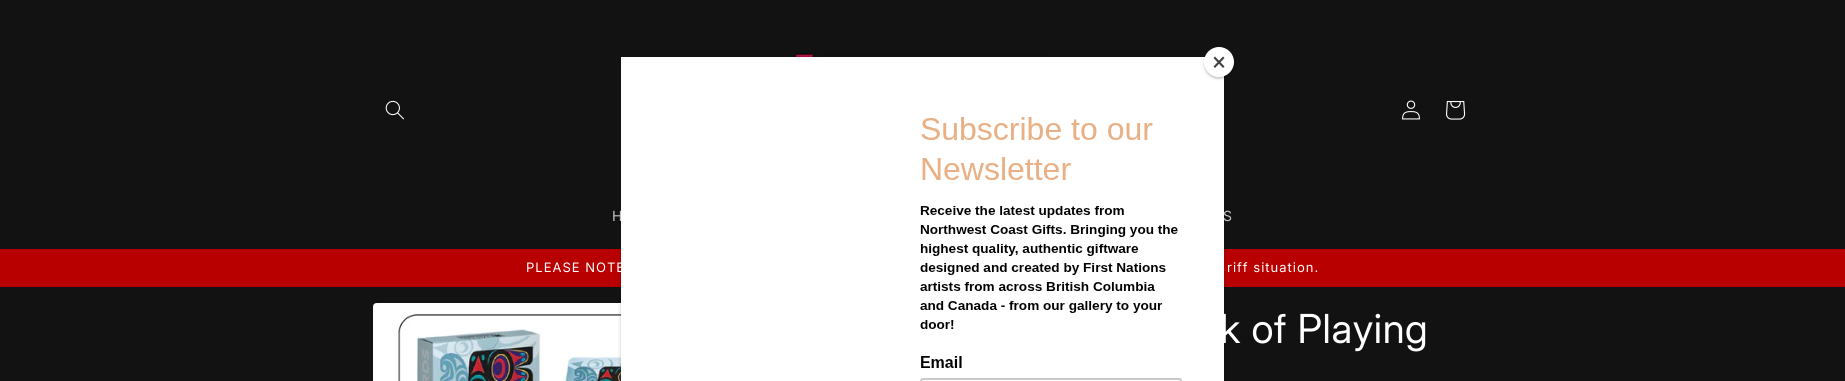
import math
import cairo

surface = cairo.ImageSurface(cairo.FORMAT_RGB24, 1845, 381)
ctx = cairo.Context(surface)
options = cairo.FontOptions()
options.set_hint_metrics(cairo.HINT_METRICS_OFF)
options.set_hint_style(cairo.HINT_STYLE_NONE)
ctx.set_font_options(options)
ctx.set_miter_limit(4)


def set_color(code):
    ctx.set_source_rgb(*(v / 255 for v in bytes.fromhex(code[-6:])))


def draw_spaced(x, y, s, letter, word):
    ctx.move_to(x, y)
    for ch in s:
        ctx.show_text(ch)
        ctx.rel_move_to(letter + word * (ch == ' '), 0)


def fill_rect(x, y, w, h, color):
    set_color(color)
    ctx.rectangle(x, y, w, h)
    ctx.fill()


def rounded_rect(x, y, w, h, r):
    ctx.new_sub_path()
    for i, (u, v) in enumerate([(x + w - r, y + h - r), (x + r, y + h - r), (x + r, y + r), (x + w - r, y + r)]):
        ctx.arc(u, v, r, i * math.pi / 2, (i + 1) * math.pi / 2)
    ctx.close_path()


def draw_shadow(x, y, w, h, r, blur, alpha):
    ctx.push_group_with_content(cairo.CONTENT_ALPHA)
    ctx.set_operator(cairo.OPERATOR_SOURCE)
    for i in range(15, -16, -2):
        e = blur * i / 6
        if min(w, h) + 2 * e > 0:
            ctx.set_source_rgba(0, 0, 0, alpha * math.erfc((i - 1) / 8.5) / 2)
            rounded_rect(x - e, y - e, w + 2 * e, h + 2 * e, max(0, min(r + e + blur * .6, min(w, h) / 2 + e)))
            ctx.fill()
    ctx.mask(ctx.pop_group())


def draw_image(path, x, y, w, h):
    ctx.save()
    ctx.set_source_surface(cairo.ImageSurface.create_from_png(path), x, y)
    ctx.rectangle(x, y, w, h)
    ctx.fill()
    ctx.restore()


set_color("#b90000")
ctx.paint()
fill_rect(0, 0, 1845, 249, "#121212")
draw_image("assets/img2.png", 793, 51, 261, 6)
fill_rect(0, 287, 1845, 94, "#121212")
draw_image("assets/img6.png", 373, 303, 248, 78)
set_color("#000000")
draw_shadow(621, 59, 603, 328, 0, 2, 0.2)
ctx.select_font_face("Inter")
ctx.set_font_size(14)
set_color("#c4c4c4")
draw_spaced(612, 221, "H", 0.6, 0)
draw_spaced(1223, 221, "S", 0.6, 0)
ctx.set_font_size(13)
set_color("#ffffff")
draw_spaced(526, 272, "PLEASE NOTE", 1, 0)
ctx.select_font_face("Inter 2")
ctx.set_font_size(40)
draw_spaced(1220, 343, "k of Playing", 0.6, 0)
draw_image("assets/img1.png", 621, 57, 603, 324)
set_color("#000000")
draw_shadow(1204, 49, 30, 30, 15, 1, 0.2)
set_color("#ffffff")
ctx.arc(1219, 62, 15, 0, 2 * math.pi)
ctx.fill()
set_color("#414141")
ctx.new_path()
ctx.move_to(1223, 56.5)
ctx.line_to(1224.5, 58)
ctx.line_to(1215, 68)
ctx.line_to(1213.5, 66.5)
ctx.close_path()
ctx.fill()
ctx.new_path()
ctx.move_to(1213.5, 58)
ctx.line_to(1215, 56.5)
ctx.line_to(1224.5, 66.5)
ctx.line_to(1223, 68)
ctx.close_path()
ctx.fill()
draw_image("assets/img3.png", 385, 100, 19, 20)
draw_image("assets/img4.png", 1402, 100, 18, 20)
draw_image("assets/img5.png", 1446, 101, 20, 19)
ctx.select_font_face("Inter")
ctx.set_font_size(13)
set_color("#ffffff")
draw_spaced(1227, 272, "riff situation.", 1, 0)
surface.write_to_png("output.png")
